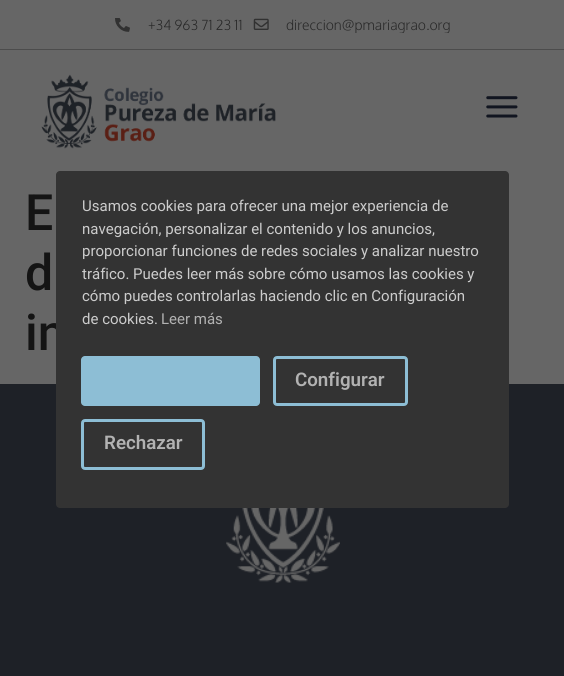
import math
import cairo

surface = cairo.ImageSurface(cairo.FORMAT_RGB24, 564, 676)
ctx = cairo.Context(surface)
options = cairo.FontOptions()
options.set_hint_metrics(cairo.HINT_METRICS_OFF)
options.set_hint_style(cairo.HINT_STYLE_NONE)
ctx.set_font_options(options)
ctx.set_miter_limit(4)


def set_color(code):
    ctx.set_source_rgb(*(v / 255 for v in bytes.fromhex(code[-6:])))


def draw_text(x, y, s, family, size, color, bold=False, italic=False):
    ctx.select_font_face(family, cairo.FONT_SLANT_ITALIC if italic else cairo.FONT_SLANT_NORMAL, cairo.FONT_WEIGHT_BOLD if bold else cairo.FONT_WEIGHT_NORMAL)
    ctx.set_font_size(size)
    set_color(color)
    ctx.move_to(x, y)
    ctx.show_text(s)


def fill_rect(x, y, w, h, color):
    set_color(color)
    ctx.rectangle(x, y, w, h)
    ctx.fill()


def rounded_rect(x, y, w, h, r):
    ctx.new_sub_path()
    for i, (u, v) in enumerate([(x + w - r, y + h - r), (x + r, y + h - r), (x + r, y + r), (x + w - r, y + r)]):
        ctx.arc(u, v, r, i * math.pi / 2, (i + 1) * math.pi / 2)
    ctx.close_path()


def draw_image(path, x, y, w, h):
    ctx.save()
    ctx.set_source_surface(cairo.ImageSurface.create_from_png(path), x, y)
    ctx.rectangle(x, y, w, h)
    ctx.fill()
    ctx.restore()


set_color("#666666")
ctx.paint()
fill_rect(0, 49, 564, 1, "#4c4c4c")
draw_image("assets/img1.png", 115, 18, 15, 14)
draw_text(148, 30, "+34 963 71 23 11", "Oxygen Light", 14, "#282828")
draw_image("assets/img2.png", 253, 18, 16, 12)
ctx.save()
ctx.rectangle(18, 18, 530, 15)
ctx.clip()
draw_text(286, 30, "direccion@pmariagrao.org", "Oxygen Light", 14, "#282828")
ctx.restore()
draw_image("assets/img3.png", 41, 74, 235, 75)
draw_image("assets/img4.png", 486, 96, 32, 22)
draw_text(25, 230, "E", "Roboto Medium", 50, "#141414")
draw_text(25, 290, "d", "Roboto Medium", 50, "#141414")
draw_text(25, 350, "in", "Roboto Medium", 50, "#141414")
fill_rect(0, 384, 564, 292, "#1e2127")
set_color("#333333")
rounded_rect(56, 171, 453, 337, 4)
ctx.fill()
draw_text(82, 211, "Usamos cookies para ofrecer una mejor experiencia de", "Roboto", 15, "#cccccc")
draw_text(82, 234, "navegación, personalizar el contenido y los anuncios,", "Roboto", 15, "#cccccc")
draw_text(82, 256, "proporcionar funciones de redes sociales y analizar nuestro", "Roboto", 15, "#cccccc")
draw_text(82, 279, "tráfico. Puedes leer más sobre cómo usamos las cookies y", "Roboto", 15, "#cccccc")
draw_text(82, 301, "cómo puedes controlarlas haciendo clic en Configuración", "Roboto", 15, "#cccccc")
draw_text(82, 324, "de cookies.", "Roboto", 15, "#cccccc")
draw_text(161, 324, "Leer más", "Roboto", 15, "#b2b2b2")
set_color("#8dbed5")
rounded_rect(81, 356, 179, 50, 4)
ctx.fill()
rounded_rect(274.5, 357.5, 132, 47, 2.5)
ctx.set_line_width(3)
ctx.stroke()
draw_text(295, 386, "Configurar", "Roboto SemiBold", 18.75, "#b2b2b2")
rounded_rect(82.5, 420.5, 121, 48, 2.5)
set_color("#8dbed5")
ctx.stroke()
draw_text(104, 449, "Rechazar", "Roboto SemiBold", 18.75, "#b2b2b2")
draw_image("assets/img5.png", 226, 508, 114, 75)
surface.write_to_png("output.png")
